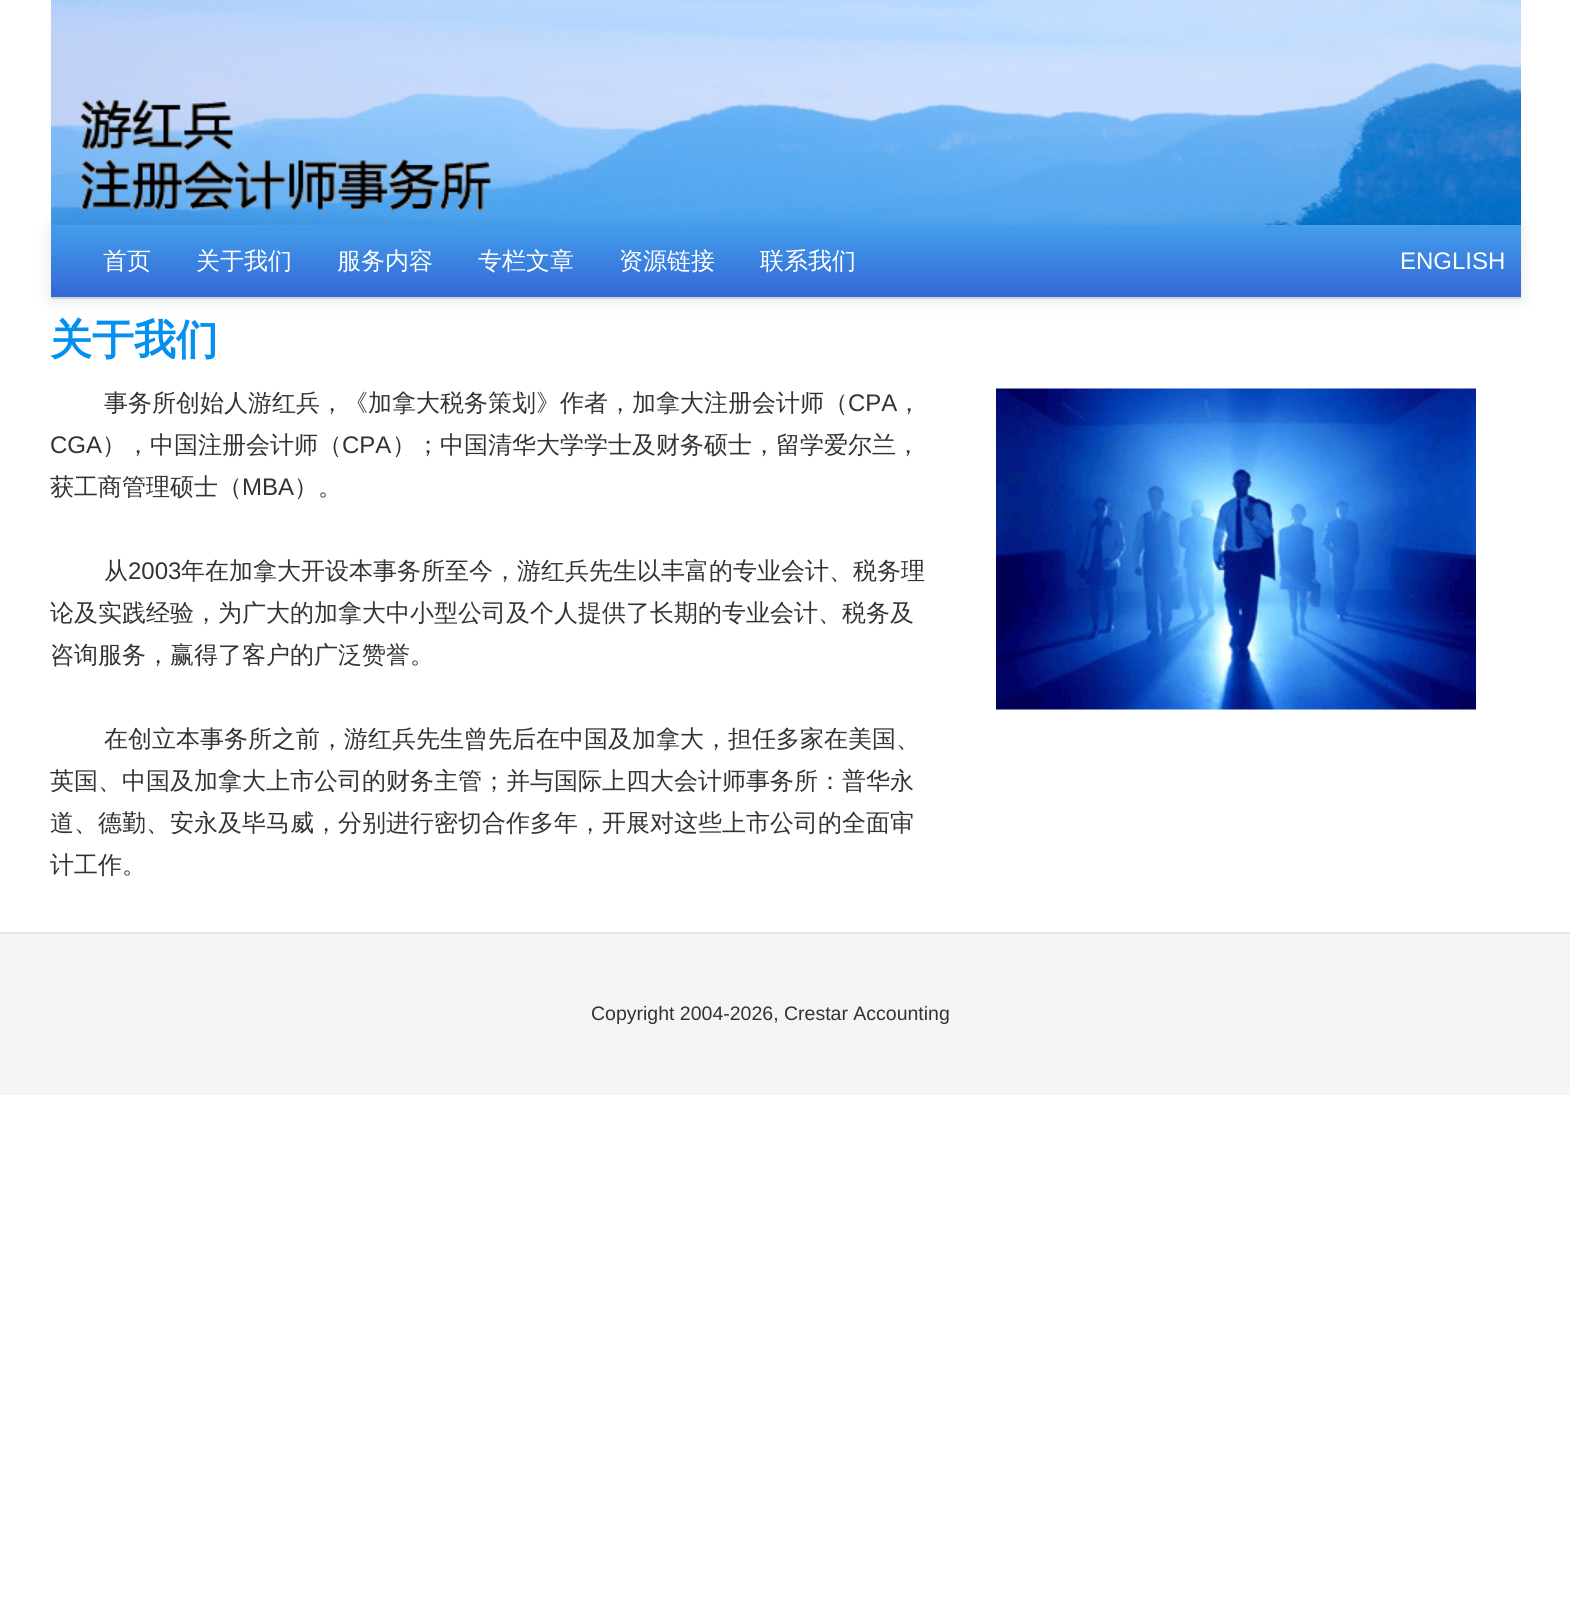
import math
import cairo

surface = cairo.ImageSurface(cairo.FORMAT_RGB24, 1570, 1614)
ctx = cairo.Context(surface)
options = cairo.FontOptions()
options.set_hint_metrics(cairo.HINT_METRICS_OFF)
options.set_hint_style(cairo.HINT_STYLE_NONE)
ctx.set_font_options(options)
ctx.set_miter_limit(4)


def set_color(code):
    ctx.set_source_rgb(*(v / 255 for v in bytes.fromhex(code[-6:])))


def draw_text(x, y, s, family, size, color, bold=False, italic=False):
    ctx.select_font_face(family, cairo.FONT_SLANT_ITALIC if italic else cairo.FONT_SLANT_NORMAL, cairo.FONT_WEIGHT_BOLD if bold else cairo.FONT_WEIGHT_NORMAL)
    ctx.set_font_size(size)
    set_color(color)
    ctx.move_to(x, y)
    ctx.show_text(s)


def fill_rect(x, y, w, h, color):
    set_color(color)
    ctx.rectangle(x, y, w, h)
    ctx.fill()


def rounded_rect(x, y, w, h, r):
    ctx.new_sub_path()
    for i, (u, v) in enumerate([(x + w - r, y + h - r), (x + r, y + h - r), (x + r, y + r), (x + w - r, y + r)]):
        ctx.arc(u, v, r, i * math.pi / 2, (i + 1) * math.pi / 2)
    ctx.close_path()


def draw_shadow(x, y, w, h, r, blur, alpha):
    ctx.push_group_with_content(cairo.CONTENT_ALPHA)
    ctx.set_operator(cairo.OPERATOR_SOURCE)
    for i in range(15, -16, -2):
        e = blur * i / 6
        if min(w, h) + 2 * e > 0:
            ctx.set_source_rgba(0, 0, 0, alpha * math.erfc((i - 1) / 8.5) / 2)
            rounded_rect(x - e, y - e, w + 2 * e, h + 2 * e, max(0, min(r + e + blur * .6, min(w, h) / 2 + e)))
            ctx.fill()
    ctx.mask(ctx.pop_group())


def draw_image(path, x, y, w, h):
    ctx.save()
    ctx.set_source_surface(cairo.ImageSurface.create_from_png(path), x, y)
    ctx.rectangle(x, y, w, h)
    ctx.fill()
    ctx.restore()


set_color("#ffffff")
ctx.paint()
draw_image("assets/img1.png", 51, 0, 1470, 225)
set_color("#000000")
draw_shadow(51, 227, 1470, 73, 0, 7.5, 0.1)
draw_image("assets/img2.png", 80, 98, 411, 113)
gradient = cairo.LinearGradient(786, 225, 786, 297)
gradient.add_color_stop_rgba(0, 0.263, 0.62, 0.922, 1)
gradient.add_color_stop_rgba(1, 0.2, 0.404, 0.839, 1)
ctx.set_source(gradient)
ctx.rectangle(51, 225, 1470, 72)
ctx.fill()
fill_rect(51, 297, 1470, 2, "#d4d4d4")
draw_text(103, 269, "首页", "WenQuanYi Zen Hei Medium", 24, "#ffffff")
draw_text(196, 269, "关于我们", "WenQuanYi Zen Hei Medium", 24, "#ffffff")
draw_text(337, 269, "服务内容", "WenQuanYi Zen Hei Medium", 24, "#ffffff")
draw_text(478, 269, "专栏文章", "WenQuanYi Zen Hei Medium", 24, "#ffffff")
draw_text(619, 269, "资源链接", "WenQuanYi Zen Hei Medium", 24, "#ffffff")
draw_text(760, 269, "联系我们", "WenQuanYi Zen Hei Medium", 24, "#ffffff")
draw_text(1400, 269, "ENGLISH", "Liberation Sans", 24, "#ffffff")
draw_text(50, 354, "关于我们", "WenQuanYi Zen Hei", 42, "#0490f1", bold=True)
draw_text(104, 411, "事务所创始人游红兵，《加拿大税务策划》作者，加拿大注册会计师（", "WenQuanYi Zen Hei Medium", 24, "#333333")
draw_text(848, 411, "CPA", "Liberation Sans", 24, "#333333")
draw_text(897, 411, "，", "WenQuanYi Zen Hei Medium", 24, "#333333")
draw_text(50, 453, "CGA", "Liberation Sans", 24, "#333333")
draw_text(102, 453, "），中国注册会计师（", "WenQuanYi Zen Hei Medium", 24, "#333333")
draw_text(342, 453, "CPA", "Liberation Sans", 24, "#333333")
draw_text(392, 453, "）；中国清华大学学士及财务硕士，留学爱尔兰，", "WenQuanYi Zen Hei Medium", 24, "#333333")
draw_text(50, 495, "获工商管理硕士（", "WenQuanYi Zen Hei Medium", 24, "#333333")
draw_text(242, 495, "MBA", "Liberation Sans", 24, "#333333")
draw_text(294, 495, "）。", "WenQuanYi Zen Hei Medium", 24, "#333333")
draw_text(104, 579, "从", "WenQuanYi Zen Hei Medium", 24, "#333333")
draw_text(128, 579, "2003", "Liberation Sans", 24, "#333333")
draw_text(181, 579, "年在加拿大开设本事务所至今，游红兵先生以丰富的专业会计、税务理", "WenQuanYi Zen Hei Medium", 24, "#333333")
draw_text(50, 621, "论及实践经验，为广大的加拿大中小型公司及个人提供了长期的专业会计、税务及", "WenQuanYi Zen Hei Medium", 24, "#333333")
draw_text(50, 663, "咨询服务，赢得了客户的广泛赞誉。", "WenQuanYi Zen Hei Medium", 24, "#333333")
draw_text(104, 747, "在创立本事务所之前，游红兵先生曾先后在中国及加拿大，担任多家在美国、", "WenQuanYi Zen Hei Medium", 24, "#333333")
draw_text(50, 789, "英国、中国及加拿大上市公司的财务主管；并与国际上四大会计师事务所：普华永", "WenQuanYi Zen Hei Medium", 24, "#333333")
draw_text(50, 831, "道、德勤、安永及毕马威，分别进行密切合作多年，开展对这些上市公司的全面审", "WenQuanYi Zen Hei Medium", 24, "#333333")
draw_text(50, 873, "计工作。", "WenQuanYi Zen Hei Medium", 24, "#333333")
draw_image("assets/img3.png", 996, 388, 480, 322)
fill_rect(0, 934, 1570, 161, "#f5f5f5")
fill_rect(0, 932, 1570, 2, "#e5e5e5")
draw_text(591, 1020, "Copyright 2004-2026, Crestar Accounting", "Liberation Sans", 19.5, "#333333")
surface.write_to_png("output.png")
